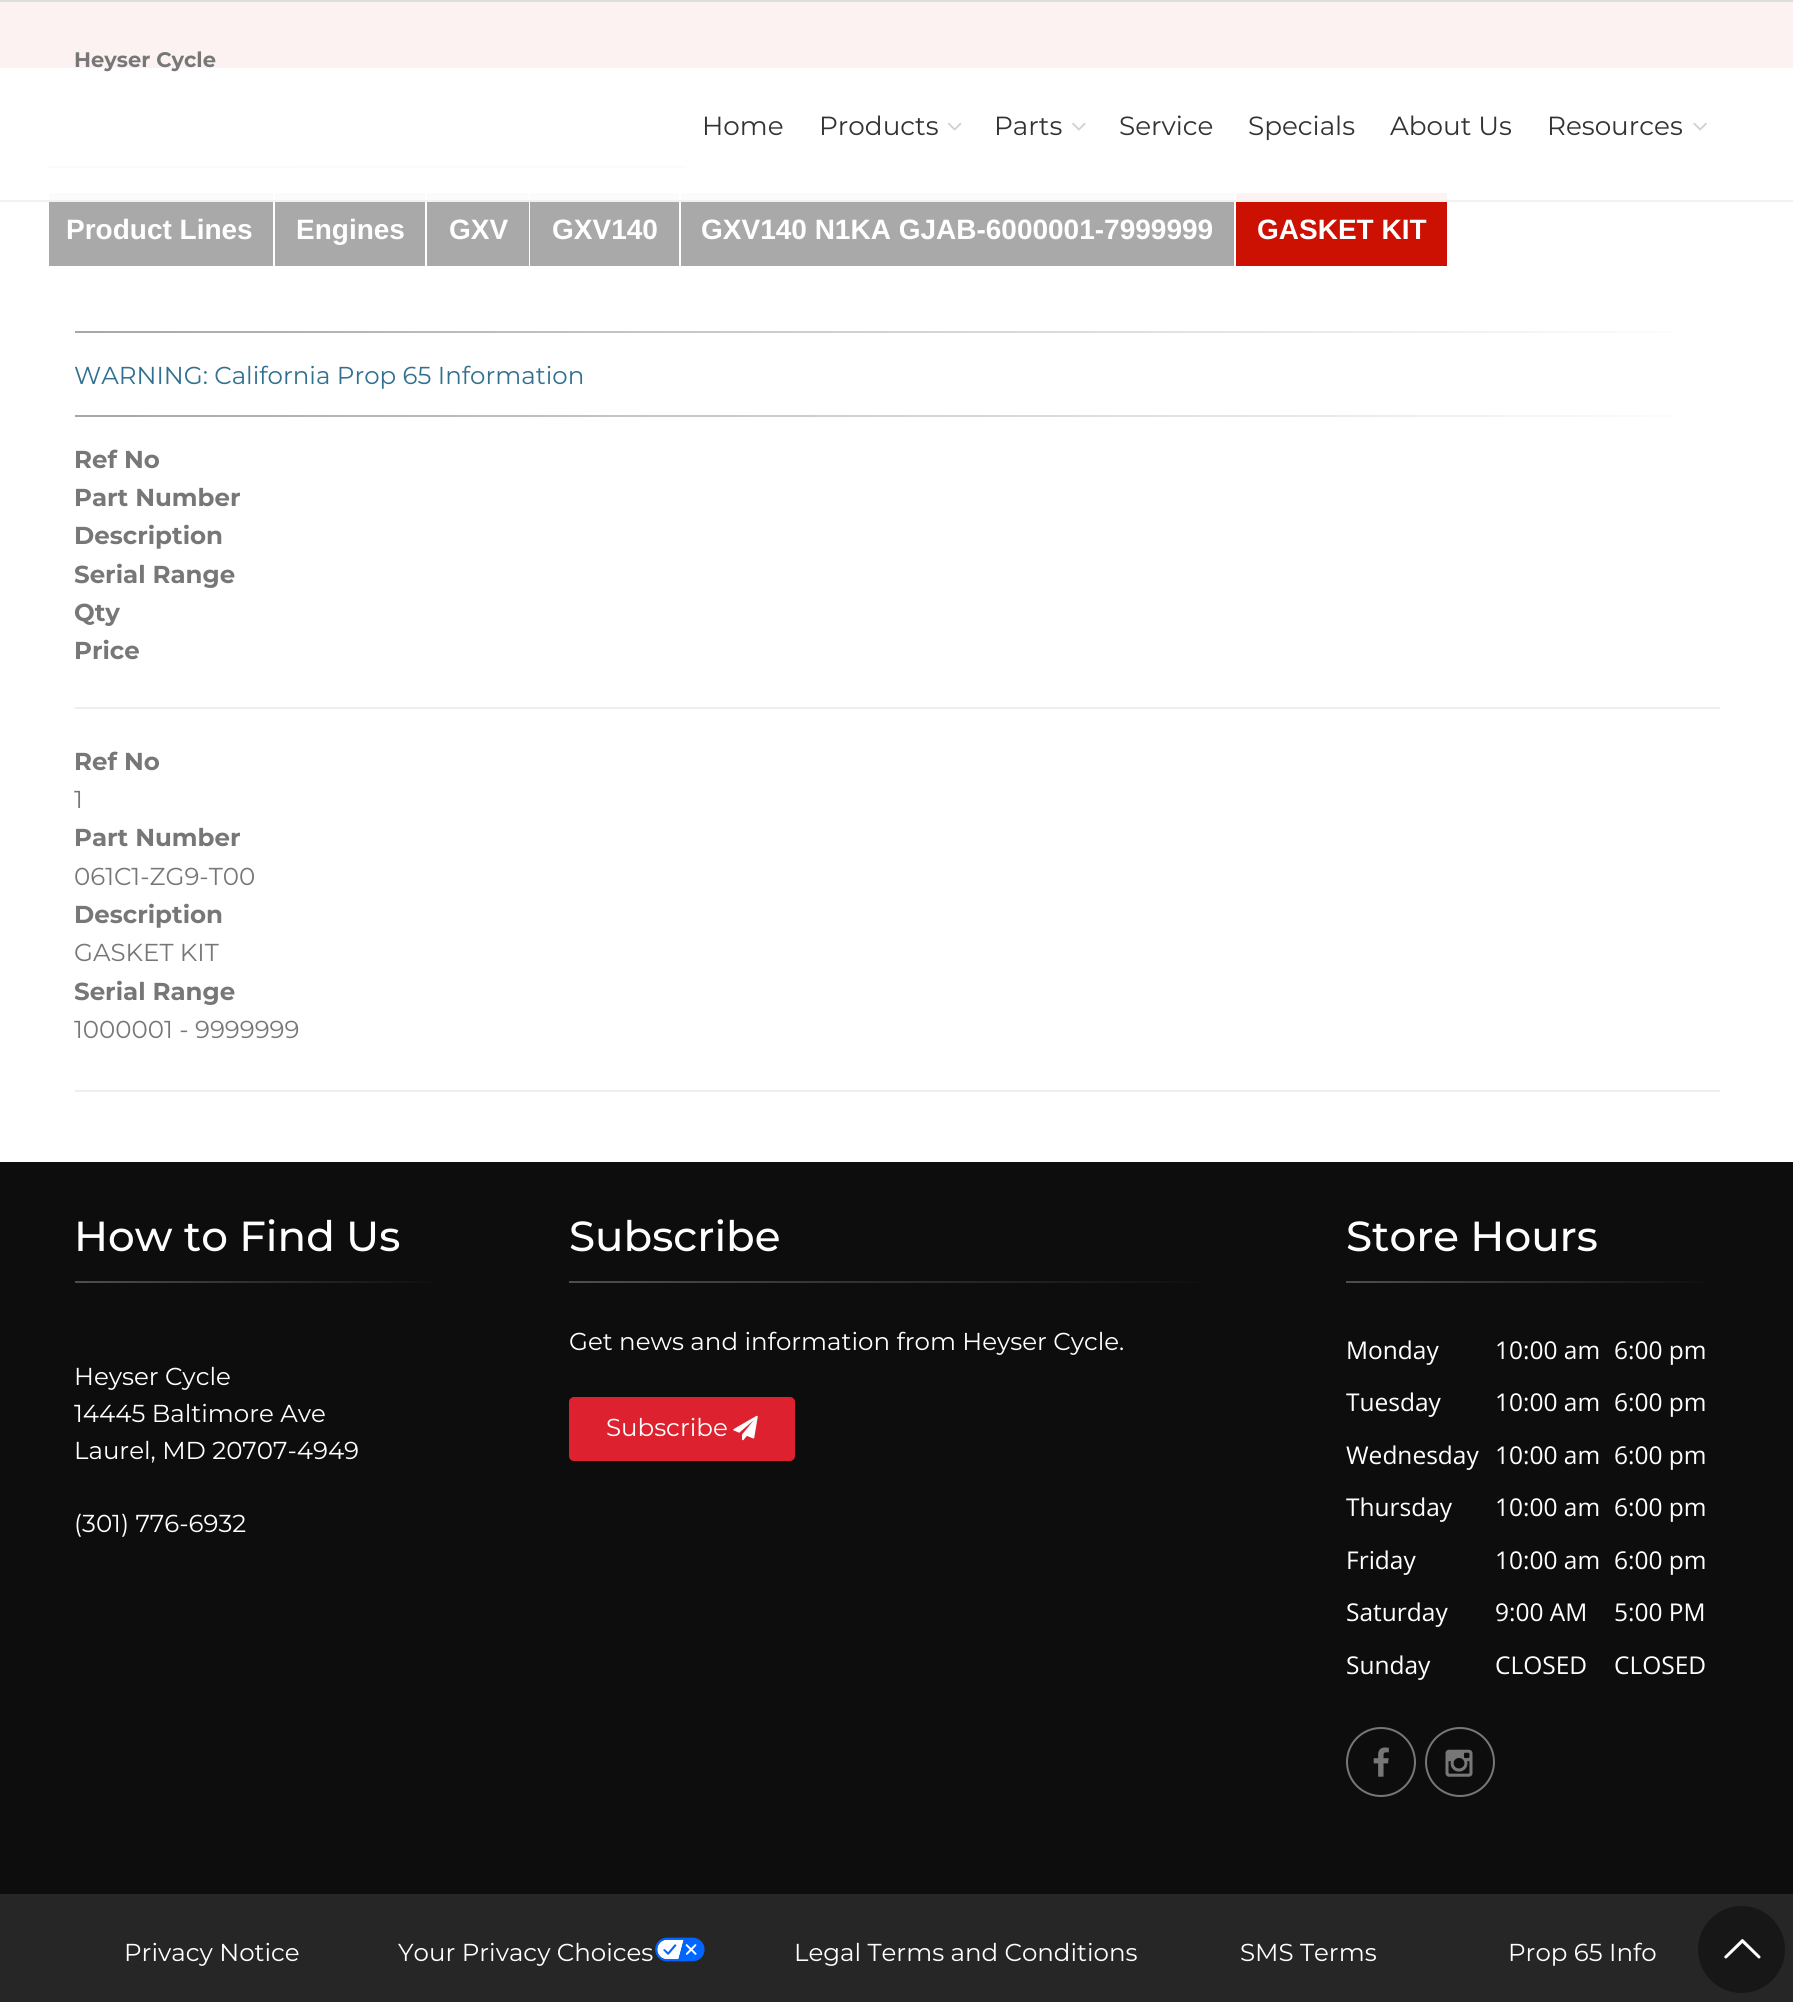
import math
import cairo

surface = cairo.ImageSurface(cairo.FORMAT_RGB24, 1793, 2002)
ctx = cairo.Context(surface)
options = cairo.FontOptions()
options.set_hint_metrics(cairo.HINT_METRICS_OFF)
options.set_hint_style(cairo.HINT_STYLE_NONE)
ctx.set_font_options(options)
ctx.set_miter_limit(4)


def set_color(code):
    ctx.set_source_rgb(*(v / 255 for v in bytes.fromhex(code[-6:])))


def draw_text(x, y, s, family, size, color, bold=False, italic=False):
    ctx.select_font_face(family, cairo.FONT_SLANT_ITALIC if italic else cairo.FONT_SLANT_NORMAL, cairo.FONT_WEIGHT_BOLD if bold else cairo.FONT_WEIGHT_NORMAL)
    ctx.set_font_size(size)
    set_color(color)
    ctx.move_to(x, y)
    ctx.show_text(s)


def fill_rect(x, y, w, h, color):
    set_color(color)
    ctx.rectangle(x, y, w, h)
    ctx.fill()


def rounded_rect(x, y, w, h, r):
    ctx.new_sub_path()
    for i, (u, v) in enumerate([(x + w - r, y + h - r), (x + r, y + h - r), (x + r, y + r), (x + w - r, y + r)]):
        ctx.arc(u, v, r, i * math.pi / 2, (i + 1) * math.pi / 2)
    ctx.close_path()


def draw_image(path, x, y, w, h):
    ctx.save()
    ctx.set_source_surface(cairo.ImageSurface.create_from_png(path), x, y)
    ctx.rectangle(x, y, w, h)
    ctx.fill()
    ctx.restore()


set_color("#ffffff")
ctx.paint()
fill_rect(0, 2, 1793, 66, "#fcf2f2")
fill_rect(0, 0, 1793, 2, "#dddddd")
fill_rect(49, 193, 1187, 7, "#fbfbfb")
fill_rect(273, 193, 2, 8, "#ffffff")
fill_rect(425, 193, 2, 8, "#ffffff")
fill_rect(529, 193, 1, 8, "#ffffff")
fill_rect(679, 193, 2, 8, "#ffffff")
fill_rect(1234, 193, 2, 8, "#ffffff")
fill_rect(1236, 193, 213, 7, "#fcf3f2")
fill_rect(1447, 193, 2, 8, "#ffffff")
fill_rect(0, 200, 1793, 2, "#f1f1f1")
draw_text(74, 67, "Heyser Cycle", "Montserrat", 21, "#777777", bold=True)
draw_text(702, 135, "Home", "Montserrat", 26.25, "#333333")
draw_text(819, 135, "Products", "Montserrat", 26.25, "#333333")
draw_image("assets/img1.png", 948, 122, 14, 9)
draw_text(994, 135, "Parts", "Montserrat", 26.25, "#333333")
draw_image("assets/img2.png", 1072, 122, 14, 9)
draw_text(1119, 135, "Service", "Montserrat", 26.25, "#333333")
draw_text(1248, 135, "Specials", "Montserrat", 26.25, "#333333")
draw_text(1390, 135, "About Us", "Montserrat", 26.25, "#333333")
draw_text(1547, 135, "Resources", "Montserrat", 26.25, "#333333")
draw_image("assets/img3.png", 1693, 122, 14, 9)
gradient = cairo.LinearGradient(49, 167, 1747, 167)
gradient.add_color_stop_rgba(0, 0.984, 0.984, 0.984, 1)
gradient.add_color_stop_rgba(1, 1, 1, 1, 1)
ctx.set_source(gradient)
ctx.rectangle(49, 166, 637, 2)
ctx.fill()
fill_rect(49, 202, 224, 64, "#a9a9a9")
draw_text(66, 239, "Product Lines", "Liberation Sans", 28, "#ffffff", bold=True)
fill_rect(275, 202, 150, 64, "#a9a9a9")
draw_text(296, 239, "Engines", "Liberation Sans", 28, "#ffffff", bold=True)
fill_rect(427, 202, 102, 64, "#a9a9a9")
draw_text(449, 239, "GXV", "Liberation Sans", 28, "#ffffff", bold=True)
fill_rect(530, 202, 149, 64, "#a9a9a9")
draw_text(552, 239, "GXV140", "Liberation Sans", 28, "#ffffff", bold=True)
fill_rect(681, 202, 553, 64, "#a9a9a9")
draw_text(701, 239, "GXV140 N1KA GJAB-6000001-7999999", "Liberation Sans", 28, "#ffffff", bold=True)
fill_rect(1236, 202, 211, 64, "#cc1001")
draw_text(1257, 239, "GASKET KIT", "Liberation Sans", 28, "#ffffff", bold=True)
gradient = cairo.LinearGradient(75, 332, 1720, 332)
gradient.add_color_stop_rgba(0, 0.655, 0.655, 0.655, 1)
gradient.add_color_stop_rgba(1, 1, 1, 1, 1)
ctx.set_source(gradient)
ctx.rectangle(75, 331, 1598, 2)
ctx.fill()
draw_text(74, 384, "WARNING: California Prop 65 Information", "Montserrat", 24.5, "#31708f")
gradient = cairo.LinearGradient(75, 416, 1720, 416)
gradient.add_color_stop_rgba(0, 0.655, 0.655, 0.655, 1)
gradient.add_color_stop_rgba(1, 1, 1, 1, 1)
ctx.set_source(gradient)
ctx.rectangle(75, 415, 1598, 2)
ctx.fill()
draw_text(74, 468, "Ref No", "Montserrat", 24.5, "#777777", bold=True)
draw_text(74, 506, "Part Number", "Montserrat", 24.5, "#777777", bold=True)
draw_text(74, 544, "Description", "Montserrat", 24.5, "#777777", bold=True)
draw_text(74, 583, "Serial Range", "Montserrat", 24.5, "#777777", bold=True)
draw_text(74, 621, "Qty", "Montserrat", 24.5, "#777777", bold=True)
draw_text(74, 659, "Price", "Montserrat", 24.5, "#777777", bold=True)
fill_rect(75, 707, 1645, 2, "#eeeeee")
draw_text(74, 770, "Ref No", "Montserrat", 24.5, "#777777", bold=True)
draw_text(74, 808, "1", "Montserrat", 24.5, "#777777")
draw_text(74, 846, "Part Number", "Montserrat", 24.5, "#777777", bold=True)
draw_text(74, 885, "061C1-ZG9-T00", "Montserrat", 24.5, "#777777")
draw_text(74, 923, "Description", "Montserrat", 24.5, "#777777", bold=True)
draw_text(74, 961, "GASKET KIT", "Montserrat", 24.5, "#777777")
draw_text(74, 1000, "Serial Range", "Montserrat", 24.5, "#777777", bold=True)
draw_text(74, 1038, "1000001 - 9999999", "Montserrat", 24.5, "#777777")
fill_rect(75, 1090, 1645, 2, "#eeeeee")
fill_rect(0, 1162, 1793, 732, "#0d0d0d")
draw_text(74, 1251, "How to Find Us", "Montserrat Medium", 42, "#ffffff")
gradient = cairo.LinearGradient(75, 1282, 446, 1282)
gradient.add_color_stop_rgba(0, 0.306, 0.306, 0.306, 1)
gradient.add_color_stop_rgba(1, 0.051, 0.051, 0.051, 1)
ctx.set_source(gradient)
ctx.rectangle(75, 1281, 357, 2)
ctx.fill()
draw_text(74, 1385, "Heyser Cycle", "Montserrat", 24.5, "#ffffff")
draw_text(74, 1422, "14445 Baltimore Ave", "Montserrat", 24.5, "#ffffff")
draw_text(74, 1459, "Laurel, MD 20707-4949", "Montserrat", 24.5, "#ffffff")
draw_text(74, 1532, "(301) 776-6932", "Montserrat", 24.5, "#ffffff")
draw_text(569, 1251, "Subscribe", "Montserrat Medium", 42, "#ffffff")
gradient = cairo.LinearGradient(569, 1282, 1223, 1282)
gradient.add_color_stop_rgba(0, 0.306, 0.306, 0.306, 1)
gradient.add_color_stop_rgba(1, 0.051, 0.051, 0.051, 1)
ctx.set_source(gradient)
ctx.rectangle(569, 1281, 629, 2)
ctx.fill()
draw_text(569, 1350, "Get news and information from Heyser Cycle.", "Montserrat", 24.5, "#ffffff")
set_color("#de212e")
rounded_rect(570, 1398, 224, 62, 4)
ctx.fill_preserve()
ctx.stroke()
draw_text(606, 1436, "Subscribe", "Montserrat", 24.5, "#ffffff")
draw_image("assets/img4.png", 733, 1415, 25, 26)
draw_text(1346, 1251, "Store Hours", "Montserrat Medium", 42, "#ffffff")
gradient = cairo.LinearGradient(1346, 1282, 1719, 1282)
gradient.add_color_stop_rgba(0, 0.306, 0.306, 0.306, 1)
gradient.add_color_stop_rgba(1, 0.051, 0.051, 0.051, 1)
ctx.set_source(gradient)
ctx.rectangle(1346, 1281, 359, 2)
ctx.fill()
draw_text(1346, 1359, "Monday", "Open Sans", 24.5, "#ffffff")
draw_text(1495, 1359, "10:00 am", "Open Sans", 24.5, "#ffffff")
draw_text(1614, 1359, "6:00 pm", "Open Sans", 24.5, "#ffffff")
draw_text(1346, 1411, "Tuesday", "Open Sans", 24.5, "#ffffff")
draw_text(1495, 1411, "10:00 am", "Open Sans", 24.5, "#ffffff")
draw_text(1614, 1411, "6:00 pm", "Open Sans", 24.5, "#ffffff")
draw_text(1346, 1464, "Wednesday", "Open Sans", 24.5, "#ffffff")
draw_text(1495, 1464, "10:00 am", "Open Sans", 24.5, "#ffffff")
draw_text(1614, 1464, "6:00 pm", "Open Sans", 24.5, "#ffffff")
draw_text(1346, 1516, "Thursday", "Open Sans", 24.5, "#ffffff")
draw_text(1495, 1516, "10:00 am", "Open Sans", 24.5, "#ffffff")
draw_text(1614, 1516, "6:00 pm", "Open Sans", 24.5, "#ffffff")
draw_text(1346, 1569, "Friday", "Open Sans", 24.5, "#ffffff")
draw_text(1495, 1569, "10:00 am", "Open Sans", 24.5, "#ffffff")
draw_text(1614, 1569, "6:00 pm", "Open Sans", 24.5, "#ffffff")
draw_text(1346, 1621, "Saturday", "Open Sans", 24.5, "#ffffff")
draw_text(1495, 1621, "9:00 AM", "Open Sans", 24.5, "#ffffff")
draw_text(1614, 1621, "5:00 PM", "Open Sans", 24.5, "#ffffff")
draw_text(1346, 1674, "Sunday", "Open Sans", 24.5, "#ffffff")
draw_text(1495, 1674, "CLOSED", "Open Sans", 24.5, "#ffffff")
draw_text(1614, 1674, "CLOSED", "Open Sans", 24.5, "#ffffff")
ctx.new_path()
ctx.arc(1381, 1762, 34, 0, 2 * math.pi)
set_color("#777777")
ctx.stroke()
draw_image("assets/img5.png", 1373, 1747, 16, 30)
ctx.arc(1460, 1762, 34, 0, 2 * math.pi)
ctx.stroke()
draw_image("assets/img6.png", 1445, 1749, 28, 28)
fill_rect(0, 1894, 1793, 108, "#262626")
draw_text(124, 1961, "Privacy Notice", "Montserrat", 24.5, "#ffffff")
draw_text(398, 1961, "Your Privacy Choices", "Montserrat", 24.5, "#ffffff")
draw_image("assets/img7.png", 655, 1937, 50, 25)
draw_text(794, 1961, "Legal Terms and Conditions", "Montserrat", 24.5, "#ffffff")
draw_text(1240, 1961, "SMS Terms", "Montserrat", 24.5, "#ffffff")
draw_text(1508, 1961, "Prop 65 Info", "Montserrat", 24.5, "#ffffff")
set_color("#171717")
ctx.new_path()
ctx.arc(1741.5, 1949.5, 43.5, 0, 2 * math.pi)
ctx.fill()
draw_image("assets/img8.png", 1724, 1939, 37, 20)
surface.write_to_png("output.png")
